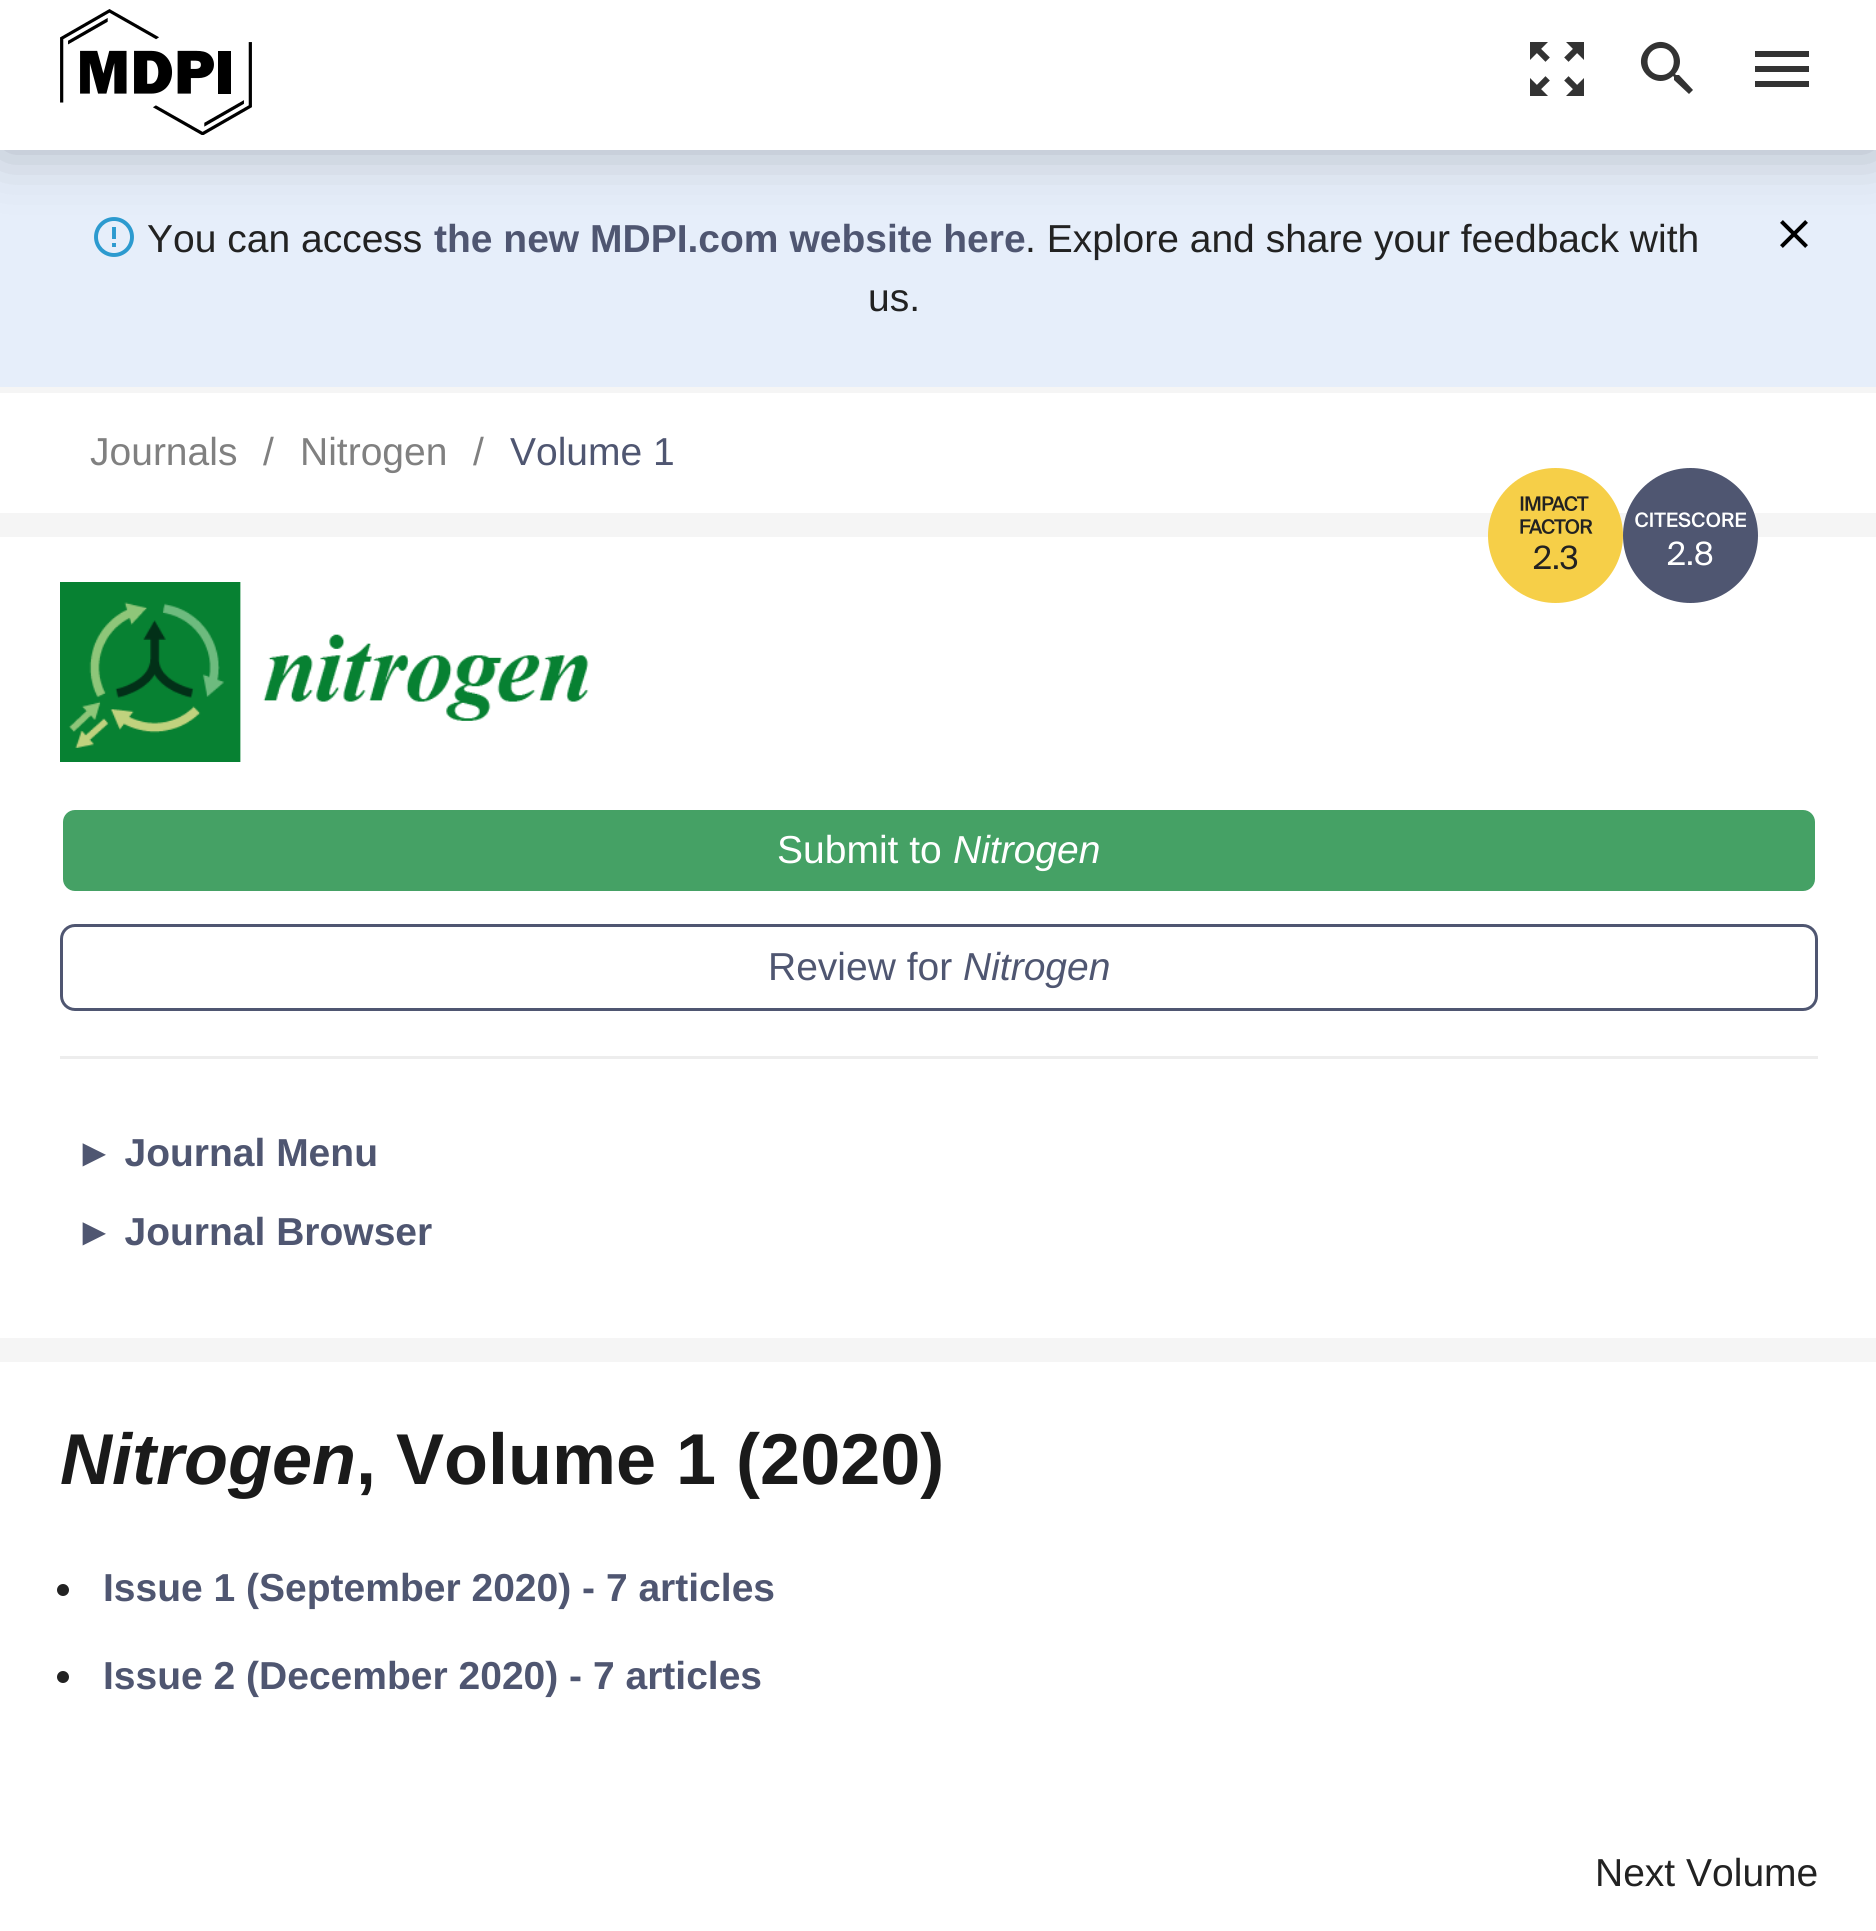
import math
import cairo

surface = cairo.ImageSurface(cairo.FORMAT_RGB24, 1876, 1931)
ctx = cairo.Context(surface)
options = cairo.FontOptions()
options.set_hint_metrics(cairo.HINT_METRICS_OFF)
options.set_hint_style(cairo.HINT_STYLE_NONE)
ctx.set_font_options(options)
ctx.set_miter_limit(4)


def set_color(code):
    ctx.set_source_rgb(*(v / 255 for v in bytes.fromhex(code[-6:])))


def draw_text(x, y, s, family, size, color, bold=False, italic=False):
    ctx.select_font_face(family, cairo.FONT_SLANT_ITALIC if italic else cairo.FONT_SLANT_NORMAL, cairo.FONT_WEIGHT_BOLD if bold else cairo.FONT_WEIGHT_NORMAL)
    ctx.set_font_size(size)
    set_color(color)
    ctx.move_to(x, y)
    ctx.show_text(s)


def fill_rect(x, y, w, h, color):
    set_color(color)
    ctx.rectangle(x, y, w, h)
    ctx.fill()


def rounded_rect(x, y, w, h, r):
    ctx.new_sub_path()
    for i, (u, v) in enumerate([(x + w - r, y + h - r), (x + r, y + h - r), (x + r, y + r), (x + w - r, y + r)]):
        ctx.arc(u, v, r, i * math.pi / 2, (i + 1) * math.pi / 2)
    ctx.close_path()


def draw_shadow(x, y, w, h, r, blur, alpha):
    ctx.push_group_with_content(cairo.CONTENT_ALPHA)
    ctx.set_operator(cairo.OPERATOR_SOURCE)
    for i in range(15, -16, -2):
        e = blur * i / 6
        if min(w, h) + 2 * e > 0:
            ctx.set_source_rgba(0, 0, 0, alpha * math.erfc((i - 1) / 8.5) / 2)
            rounded_rect(x - e, y - e, w + 2 * e, h + 2 * e, max(0, min(r + e + blur * .6, min(w, h) / 2 + e)))
            ctx.fill()
    ctx.mask(ctx.pop_group())


def draw_image(path, x, y, w, h):
    ctx.save()
    ctx.set_source_surface(cairo.ImageSurface.create_from_png(path), x, y)
    ctx.rectangle(x, y, w, h)
    ctx.fill()
    ctx.restore()


set_color("#f5f5f5")
ctx.paint()
fill_rect(0, 150, 1876, 237, "#e6eefa")
draw_image("assets/img3.png", 94, 217, 40, 40)
draw_image("assets/img4.png", 1780, 220, 28, 28)
set_color("#000000")
draw_shadow(0, 0, 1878, 150, 0, 30, 0.25)
fill_rect(0, 0, 1876, 150, "#ffffff")
draw_image("assets/img1.png", 60, 9, 192, 126)
draw_image("assets/img2.png", 1530, 42, 54, 54)
set_color("#333333")
ctx.new_path()
ctx.move_to(1679, 75)
ctx.line_to(1676, 75)
ctx.line_to(1675, 74)
ctx.curve_to(1691, 56, 1665, 30, 1647, 48)
ctx.curve_to(1629, 66, 1655, 92, 1673, 76)
ctx.line_to(1674, 77)
ctx.line_to(1674, 80)
ctx.line_to(1689, 94)
ctx.line_to(1693, 90)
ctx.close_path()
ctx.move_to(1661, 75)
ctx.curve_to(1643, 75, 1643, 48, 1661, 48)
ctx.curve_to(1678, 48, 1678, 75, 1661, 75)
ctx.close_path()
ctx.fill()
ctx.new_path()
ctx.move_to(1755, 87)
ctx.line_to(1809, 87)
ctx.line_to(1809, 81)
ctx.line_to(1755, 81)
ctx.close_path()
ctx.move_to(1755, 72)
ctx.line_to(1809, 72)
ctx.line_to(1809, 66)
ctx.line_to(1755, 66)
ctx.close_path()
ctx.move_to(1755, 51)
ctx.line_to(1755, 57)
ctx.line_to(1809, 57)
ctx.line_to(1809, 51)
ctx.close_path()
ctx.fill()
draw_text(147, 252, "You can access", "Liberation Sans", 39, "#222222")
draw_text(434, 252, "the new MDPI.com website here", "Liberation Sans", 39, "#4f5671", bold=True)
draw_text(1025, 252, ". Explore and share your feedback with", "Liberation Sans", 39, "#222222")
draw_text(868, 311, "us.", "Liberation Sans", 39, "#222222")
fill_rect(0, 393, 1876, 120, "#ffffff")
draw_text(90, 465, "Journals", "Liberation Sans", 39, "#808080")
draw_text(263, 465, "/", "Liberation Sans", 39, "#808080")
draw_text(300, 465, "Nitrogen", "Liberation Sans", 39, "#808080")
draw_text(473, 465, "/", "Liberation Sans", 39, "#808080")
draw_text(510, 465, "Volume 1", "Liberation Sans", 39, "#4f5671")
fill_rect(0, 537, 1876, 801, "#ffffff")
draw_image("assets/img5.png", 1488, 468, 135, 135)
draw_text(1533, 569, "2.3", "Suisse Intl", 32, "#222222")
draw_image("assets/img6.png", 1623, 468, 135, 135)
draw_text(1667, 565, "2.8", "Suisse Intl", 32, "#ffffff")
draw_image("assets/img7.png", 60, 582, 529, 180)
set_color("#45a165")
rounded_rect(61.5, 808.5, 1755, 84, 13.5)
ctx.fill_preserve()
set_color("#ffffff")
ctx.set_line_width(3)
ctx.stroke()
draw_text(777, 863, "Submit to", "Liberation Sans", 39, "#ffffff")
draw_text(953, 863, "Nitrogen", "Liberation Sans", 39, "#ffffff", italic=True)
rounded_rect(61.5, 925.5, 1755, 84, 13.5)
set_color("#4f5671")
ctx.stroke()
draw_text(768, 980, "Review for", "Liberation Sans", 39, "#4f5671")
draw_text(963, 980, "Nitrogen", "Liberation Sans", 39, "#4f5671", italic=True)
fill_rect(60, 1056, 1758, 3, "#ededed")
draw_text(75, 1166, "► Journal Menu", "Liberation Sans", 39, "#4f5671", bold=True)
draw_text(75, 1245, "► Journal Browser", "Liberation Sans", 39, "#4f5671", bold=True)
fill_rect(0, 1362, 1876, 569, "#ffffff")
draw_text(60, 1484, "Nitrogen", "Liberation Sans", 72, "#1a1a1a", bold=True, italic=True)
draw_text(356, 1484, ", Volume 1 (2020)", "Liberation Sans", 72, "#1a1a1a", bold=True)
set_color("#222222")
ctx.new_path()
ctx.arc(63, 1590, 6, 0, 2 * math.pi)
ctx.fill()
draw_text(103, 1601, "Issue 1 (September 2020) - 7 articles", "Liberation Sans", 39, "#4f5671", bold=True)
set_color("#222222")
ctx.new_path()
ctx.arc(63, 1677, 6, 0, 2 * math.pi)
ctx.fill()
draw_text(103, 1689, "Issue 2 (December 2020) - 7 articles", "Liberation Sans", 39, "#4f5671", bold=True)
draw_text(1595, 1886, "Next Volume", "Liberation Sans", 39, "#222222")
surface.write_to_png("output.png")
